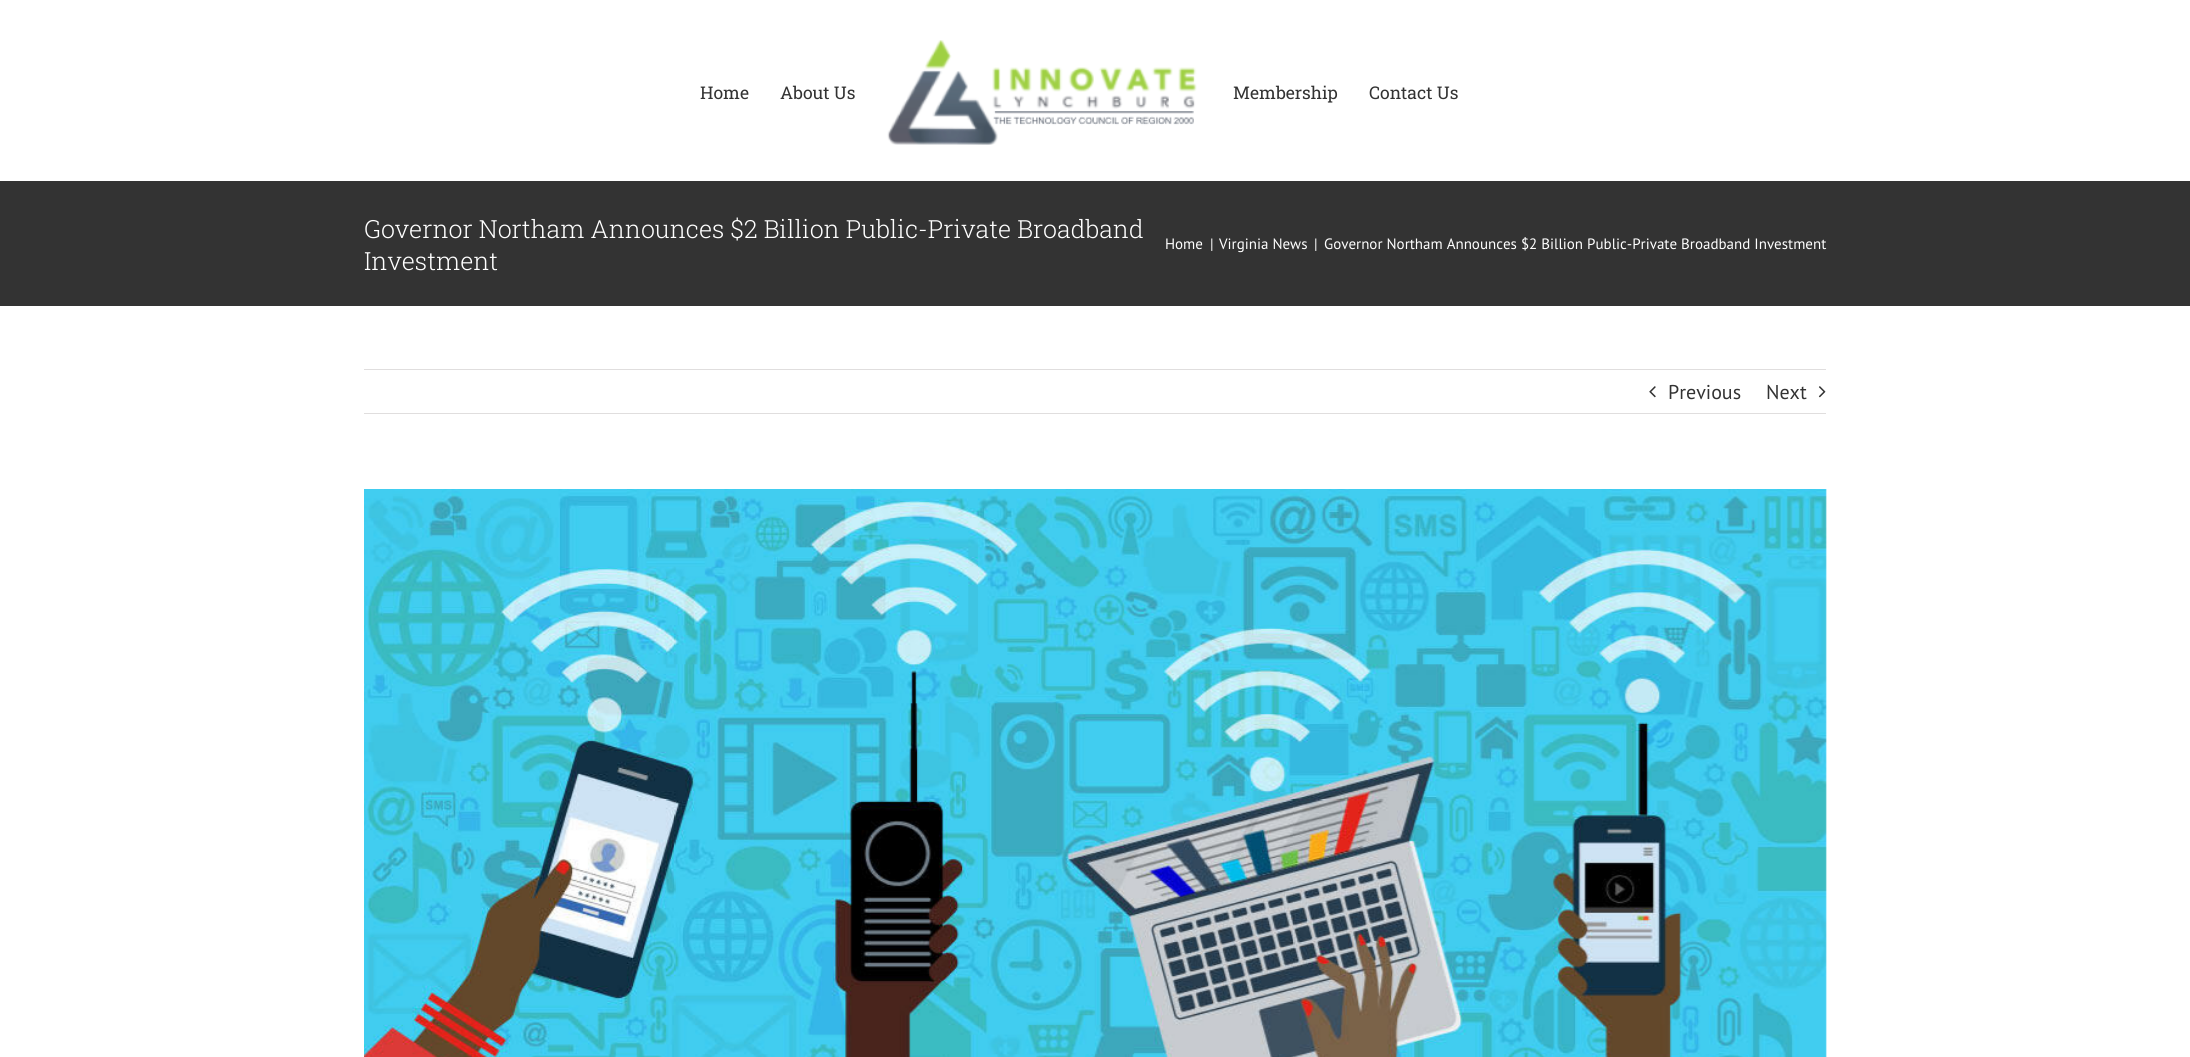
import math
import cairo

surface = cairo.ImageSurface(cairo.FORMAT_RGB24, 2190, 1057)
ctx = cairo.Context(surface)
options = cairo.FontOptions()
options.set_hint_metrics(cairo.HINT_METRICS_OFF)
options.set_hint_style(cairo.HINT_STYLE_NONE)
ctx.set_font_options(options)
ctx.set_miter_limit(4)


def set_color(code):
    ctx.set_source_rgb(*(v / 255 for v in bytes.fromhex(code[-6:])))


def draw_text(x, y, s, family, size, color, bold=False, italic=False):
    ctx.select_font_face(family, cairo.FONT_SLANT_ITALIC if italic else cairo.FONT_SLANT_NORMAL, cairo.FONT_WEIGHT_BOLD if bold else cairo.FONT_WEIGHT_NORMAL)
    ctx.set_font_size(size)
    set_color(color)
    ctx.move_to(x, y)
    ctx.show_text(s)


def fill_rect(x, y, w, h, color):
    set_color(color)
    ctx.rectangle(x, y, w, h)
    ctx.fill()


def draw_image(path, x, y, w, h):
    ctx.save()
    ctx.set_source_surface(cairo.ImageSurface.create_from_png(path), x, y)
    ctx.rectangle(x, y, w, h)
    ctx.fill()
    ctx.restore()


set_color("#ffffff")
ctx.paint()
draw_text(700, 99, "Home", "Roboto Slab", 17.5, "#333333")
draw_text(780, 99, "About Us", "Roboto Slab", 17.5, "#333333")
draw_image("assets/img1.png", 887, 40, 310, 105)
draw_text(1233, 99, "Membership", "Roboto Slab", 17.5, "#333333")
draw_text(1369, 99, "Contact Us", "Roboto Slab", 17.5, "#333333")
fill_rect(0, 181, 2190, 125, "#333333")
draw_text(364, 238, "Governor Northam Announces $2 Billion Public-Private Broadband", "Roboto Slab Light", 25, "#ffffff")
draw_text(364, 270, "Investment", "Roboto Slab Light", 25, "#ffffff")
draw_text(1165, 249, "Home", "PT Sans", 15, "#ffffff")
draw_text(1210, 249, "|", "PT Sans", 15, "#ffffff")
draw_text(1219, 249, "Virginia News", "PT Sans", 15, "#ffffff")
draw_text(1314, 249, "|", "PT Sans", 15, "#ffffff")
draw_text(1324, 249, "Governor Northam Announces $2 Billion Public-Private Broadband Investment", "PT Sans", 15, "#ffffff")
fill_rect(364, 369, 1462, 1, "#e0dede")
fill_rect(364, 413, 1462, 1, "#e0dede")
draw_image("assets/img2.png", 1649, 386, 7, 12)
draw_text(1668, 399, "Previous", "PT Sans", 20, "#333333")
draw_text(1766, 399, "Next", "PT Sans", 20, "#333333")
draw_image("assets/img3.png", 1818, 386, 8, 12)
draw_image("assets/img4.png", 364, 489, 1463, 568)
surface.write_to_png("output.png")
